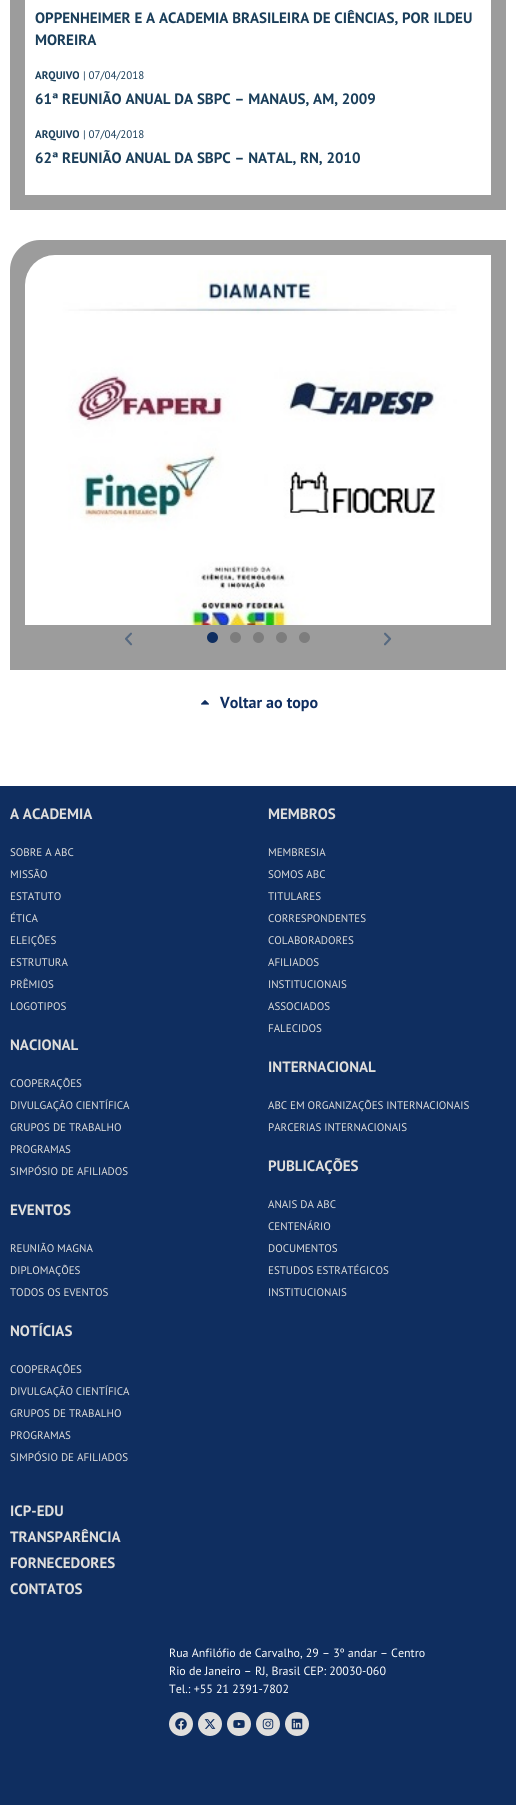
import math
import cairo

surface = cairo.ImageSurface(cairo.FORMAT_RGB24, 516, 1805)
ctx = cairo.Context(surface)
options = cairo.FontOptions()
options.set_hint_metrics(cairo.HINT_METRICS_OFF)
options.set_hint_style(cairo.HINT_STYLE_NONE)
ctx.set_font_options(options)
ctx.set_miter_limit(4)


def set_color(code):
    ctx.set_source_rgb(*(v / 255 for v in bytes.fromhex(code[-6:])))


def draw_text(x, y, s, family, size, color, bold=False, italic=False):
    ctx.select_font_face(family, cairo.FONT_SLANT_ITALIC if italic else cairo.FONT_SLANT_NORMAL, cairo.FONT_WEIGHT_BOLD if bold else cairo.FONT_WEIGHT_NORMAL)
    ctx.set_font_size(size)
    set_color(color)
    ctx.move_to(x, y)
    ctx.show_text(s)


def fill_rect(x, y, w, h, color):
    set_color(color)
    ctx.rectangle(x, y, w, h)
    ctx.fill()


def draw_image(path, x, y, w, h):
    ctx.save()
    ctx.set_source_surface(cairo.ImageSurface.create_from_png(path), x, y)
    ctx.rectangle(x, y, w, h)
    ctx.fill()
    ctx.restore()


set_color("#ffffff")
ctx.paint()
fill_rect(10, 0, 496, 210, "#9c9c9c")
fill_rect(25, 0, 466, 195, "#ffffff")
draw_text(35, 23, "OPPENHEIMER E A ACADEMIA BRASILEIRA DE CIÊNCIAS, POR ILDEU", "PT Sans", 15, "#1a3e5a", bold=True)
draw_text(35, 45, "MOREIRA", "PT Sans", 15, "#1a3e5a", bold=True)
draw_text(35, 79, "ARQUIVO", "PT Sans", 11, "#1a3e5a", bold=True)
draw_text(83, 79, "| 07/04/2018", "PT Sans", 11, "#1a3e5a")
draw_text(35, 104, "61ª REUNIÃO ANUAL DA SBPC – MANAUS, AM, 2009", "PT Sans", 15, "#1a3e5a", bold=True)
draw_text(35, 138, "ARQUIVO", "PT Sans", 11, "#1a3e5a", bold=True)
draw_text(83, 138, "| 07/04/2018", "PT Sans", 11, "#1a3e5a")
draw_text(35, 163, "62ª REUNIÃO ANUAL DA SBPC – NATAL, RN, 2010", "PT Sans", 15, "#1a3e5a", bold=True)
set_color("#9c9c9c")
ctx.new_path()
ctx.move_to(40, 240)
ctx.line_to(506, 240)
ctx.line_to(506, 670)
ctx.line_to(10, 670)
ctx.line_to(10, 270)
ctx.curve_to(10, 253.5, 23.5, 240, 40, 240)
ctx.close_path()
ctx.fill()
draw_image("assets/img1.png", 25, 255, 466, 370)
draw_image("assets/img2.png", 125, 632, 8, 14)
set_color("#0f2e60")
ctx.arc(212.5, 637.5, 5.5, 0, 2 * math.pi)
ctx.fill()
set_color("#7d7d7d")
ctx.arc(235.5, 637.5, 5.5, 0, 2 * math.pi)
ctx.fill()
ctx.arc(258.5, 637.5, 5.5, 0, 2 * math.pi)
ctx.fill()
ctx.arc(281.5, 637.5, 5.5, 0, 2 * math.pi)
ctx.fill()
ctx.arc(304.5, 637.5, 5.5, 0, 2 * math.pi)
ctx.fill()
draw_image("assets/img3.png", 384, 632, 8, 14)
draw_image("assets/img4.png", 201, 700, 8, 5)
draw_text(220, 708, "Voltar ao topo", "PT Sans", 16, "#0f2e60", bold=True)
fill_rect(0, 786, 516, 1019, "#0f2e60")
draw_text(10, 819, "A ACADEMIA", "PT Sans", 15, "#dfdedc", bold=True)
draw_text(10, 856, "SOBRE A ABC", "PT Sans", 11, "#dfdedc")
draw_text(10, 878, "MISSÃO", "PT Sans", 11, "#dfdedc")
draw_text(10, 900, "ESTATUTO", "PT Sans", 11, "#dfdedc")
draw_text(10, 922, "ÉTICA", "PT Sans", 11, "#dfdedc")
draw_text(10, 944, "ELEIÇÕES", "PT Sans", 11, "#dfdedc")
draw_text(10, 966, "ESTRUTURA", "PT Sans", 11, "#dfdedc")
draw_text(10, 988, "PRÊMIOS", "PT Sans", 11, "#dfdedc")
draw_text(10, 1010, "LOGOTIPOS", "PT Sans", 11, "#dfdedc")
draw_text(10, 1050, "NACIONAL", "PT Sans", 15, "#dfdedc", bold=True)
draw_text(10, 1087, "COOPERAÇÕES", "PT Sans", 11, "#dfdedc")
draw_text(10, 1109, "DIVULGAÇÃO CIENTÍFICA", "PT Sans", 11, "#dfdedc")
draw_text(10, 1131, "GRUPOS DE TRABALHO", "PT Sans", 11, "#dfdedc")
draw_text(10, 1153, "PROGRAMAS", "PT Sans", 11, "#dfdedc")
draw_text(10, 1175, "SIMPÓSIO DE AFILIADOS", "PT Sans", 11, "#dfdedc")
draw_text(10, 1215, "EVENTOS", "PT Sans", 15, "#dfdedc", bold=True)
draw_text(10, 1252, "REUNIÃO MAGNA", "PT Sans", 11, "#dfdedc")
draw_text(10, 1274, "DIPLOMAÇÕES", "PT Sans", 11, "#dfdedc")
draw_text(10, 1296, "TODOS OS EVENTOS", "PT Sans", 11, "#dfdedc")
draw_text(10, 1336, "NOTÍCIAS", "PT Sans", 15, "#dfdedc", bold=True)
draw_text(10, 1373, "COOPERAÇÕES", "PT Sans", 11, "#dfdedc")
draw_text(10, 1395, "DIVULGAÇÃO CIENTÍFICA", "PT Sans", 11, "#dfdedc")
draw_text(10, 1417, "GRUPOS DE TRABALHO", "PT Sans", 11, "#dfdedc")
draw_text(10, 1439, "PROGRAMAS", "PT Sans", 11, "#dfdedc")
draw_text(10, 1461, "SIMPÓSIO DE AFILIADOS", "PT Sans", 11, "#dfdedc")
draw_text(268, 819, "MEMBROS", "PT Sans", 15, "#dfdedc", bold=True)
draw_text(268, 856, "MEMBRESIA", "PT Sans", 11, "#dfdedc")
draw_text(268, 878, "SOMOS ABC", "PT Sans", 11, "#dfdedc")
draw_text(268, 900, "TITULARES", "PT Sans", 11, "#dfdedc")
draw_text(268, 922, "CORRESPONDENTES", "PT Sans", 11, "#dfdedc")
draw_text(268, 944, "COLABORADORES", "PT Sans", 11, "#dfdedc")
draw_text(268, 966, "AFILIADOS", "PT Sans", 11, "#dfdedc")
draw_text(268, 988, "INSTITUCIONAIS", "PT Sans", 11, "#dfdedc")
draw_text(268, 1010, "ASSOCIADOS", "PT Sans", 11, "#dfdedc")
draw_text(268, 1032, "FALECIDOS", "PT Sans", 11, "#dfdedc")
draw_text(268, 1072, "INTERNACIONAL", "PT Sans", 15, "#dfdedc", bold=True)
draw_text(268, 1109, "ABC EM ORGANIZAÇÕES INTERNACIONAIS", "PT Sans", 11, "#dfdedc")
draw_text(268, 1131, "PARCERIAS INTERNACIONAIS", "PT Sans", 11, "#dfdedc")
draw_text(268, 1171, "PUBLICAÇÕES", "PT Sans", 15, "#dfdedc", bold=True)
draw_text(268, 1208, "ANAIS DA ABC", "PT Sans", 11, "#dfdedc")
draw_text(268, 1230, "CENTENÁRIO", "PT Sans", 11, "#dfdedc")
draw_text(268, 1252, "DOCUMENTOS", "PT Sans", 11, "#dfdedc")
draw_text(268, 1274, "ESTUDOS ESTRATÉGICOS", "PT Sans", 11, "#dfdedc")
draw_text(268, 1296, "INSTITUCIONAIS", "PT Sans", 11, "#dfdedc")
draw_text(10, 1516, "ICP-EDU", "PT Sans", 15, "#dfdedc", bold=True)
draw_text(10, 1542, "TRANSPARÊNCIA", "PT Sans", 15, "#dfdedc", bold=True)
draw_text(10, 1568, "FORNECEDORES", "PT Sans", 15, "#dfdedc", bold=True)
draw_text(10, 1594, "CONTATOS", "PT Sans", 15, "#dfdedc", bold=True)
draw_text(169, 1657, "Rua Anfilófio de Carvalho, 29 – 3º andar – Centro", "PT Sans", 12, "#ffffff")
draw_text(169, 1675, "Rio de Janeiro – RJ, Brasil CEP: 20030-060", "PT Sans", 12, "#ffffff")
draw_text(169, 1693, "Tel.: +55 21 2391-7802", "PT Sans", 12, "#ffffff")
set_color("#dfdedc")
ctx.new_path()
ctx.arc(181, 1724, 12, 0, 2 * math.pi)
ctx.fill()
draw_image("assets/img5.png", 175, 1718, 12, 12)
ctx.arc(210, 1724, 12, 0, 2 * math.pi)
ctx.fill()
draw_image("assets/img6.png", 204, 1719, 12, 10)
ctx.arc(239, 1724, 12, 0, 2 * math.pi)
ctx.fill()
draw_image("assets/img7.png", 233, 1720, 12, 8)
ctx.arc(268, 1724, 12, 0, 2 * math.pi)
ctx.fill()
draw_image("assets/img8.png", 262, 1718, 12, 12)
ctx.arc(297, 1724, 12, 0, 2 * math.pi)
ctx.fill()
draw_image("assets/img9.png", 291, 1718, 12, 12)
surface.write_to_png("output.png")
